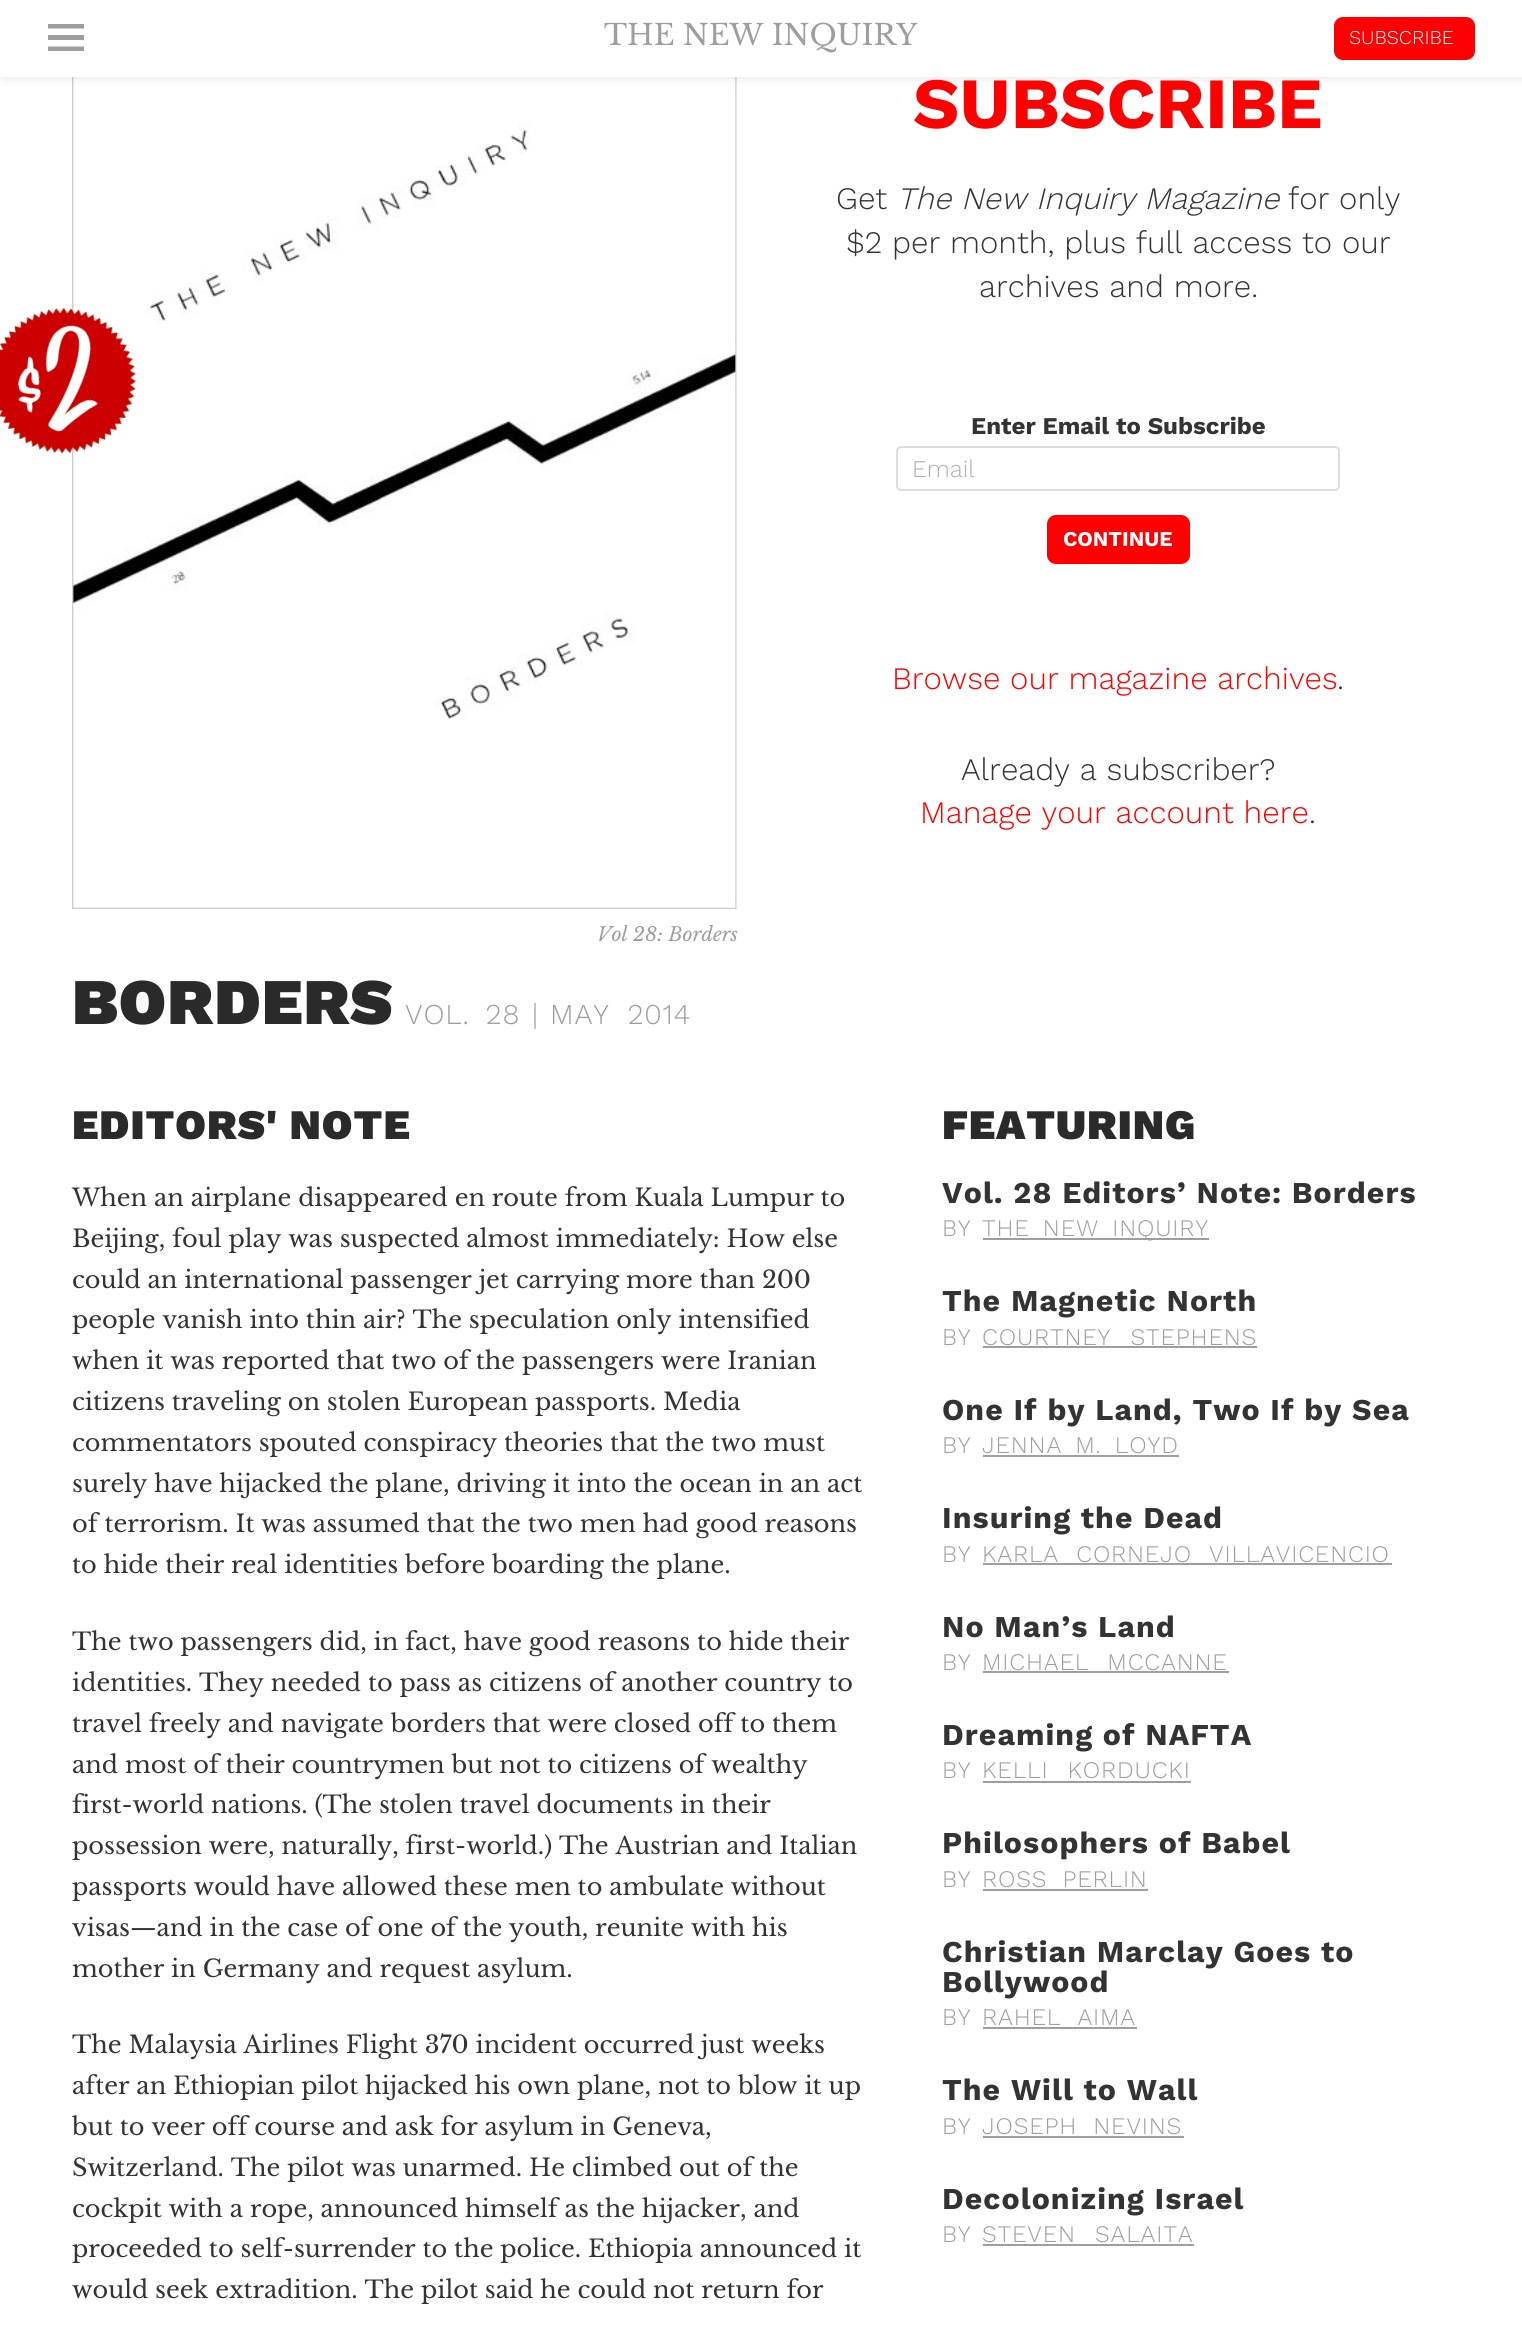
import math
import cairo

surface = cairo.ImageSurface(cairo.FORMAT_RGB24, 1522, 2325)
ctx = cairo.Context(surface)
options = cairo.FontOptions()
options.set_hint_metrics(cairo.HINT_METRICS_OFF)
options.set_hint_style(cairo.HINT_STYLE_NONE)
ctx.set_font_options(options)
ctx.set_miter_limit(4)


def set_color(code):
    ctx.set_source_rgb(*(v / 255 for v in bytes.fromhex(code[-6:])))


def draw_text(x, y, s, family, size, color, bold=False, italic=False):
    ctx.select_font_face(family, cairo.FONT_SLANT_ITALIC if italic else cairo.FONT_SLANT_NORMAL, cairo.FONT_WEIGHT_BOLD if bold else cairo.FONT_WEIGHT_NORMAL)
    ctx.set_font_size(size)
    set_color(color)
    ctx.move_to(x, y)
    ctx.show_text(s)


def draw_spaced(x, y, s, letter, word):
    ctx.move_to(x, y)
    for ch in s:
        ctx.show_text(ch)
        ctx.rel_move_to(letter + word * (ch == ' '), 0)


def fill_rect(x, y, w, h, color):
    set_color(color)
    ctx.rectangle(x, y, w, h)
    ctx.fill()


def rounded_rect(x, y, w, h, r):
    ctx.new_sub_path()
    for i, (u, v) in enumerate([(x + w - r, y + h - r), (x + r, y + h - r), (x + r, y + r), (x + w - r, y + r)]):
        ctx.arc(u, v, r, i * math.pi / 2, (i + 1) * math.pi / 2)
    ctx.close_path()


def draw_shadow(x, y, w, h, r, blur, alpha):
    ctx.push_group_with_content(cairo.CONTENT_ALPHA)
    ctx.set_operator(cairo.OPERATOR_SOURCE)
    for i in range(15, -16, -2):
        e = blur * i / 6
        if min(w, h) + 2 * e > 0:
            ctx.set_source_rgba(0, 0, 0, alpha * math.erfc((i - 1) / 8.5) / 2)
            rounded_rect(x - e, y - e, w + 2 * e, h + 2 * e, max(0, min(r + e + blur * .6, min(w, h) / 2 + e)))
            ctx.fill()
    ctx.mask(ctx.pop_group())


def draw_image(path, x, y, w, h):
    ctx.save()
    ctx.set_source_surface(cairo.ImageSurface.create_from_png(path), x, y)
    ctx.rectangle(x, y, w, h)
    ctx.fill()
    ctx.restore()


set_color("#ffffff")
ctx.paint()
draw_image("assets/img2.png", 72, 77, 665, 832)
set_color("#323232")
draw_shadow(2, 3, 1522, 77, 0, 4, 0.1)
fill_rect(0, 0, 1522, 77, "#ffffff")
set_color("#9e9e9e")
ctx.new_path()
ctx.move_to(48, 51)
ctx.line_to(48, 46.5)
ctx.line_to(84, 46.5)
ctx.line_to(84, 51)
ctx.close_path()
ctx.move_to(48, 24)
ctx.line_to(84, 24)
ctx.line_to(84, 28.5)
ctx.line_to(48, 28.5)
ctx.close_path()
ctx.move_to(48, 40)
ctx.line_to(48, 35)
ctx.line_to(84, 35)
ctx.line_to(84, 40)
ctx.close_path()
ctx.fill()
draw_text(604, 45, "THE NEW INQUIRY", "Libre Baskerville", 28.75, "#9e9e9e")
set_color("#ff0000")
rounded_rect(1334, 17, 141, 43, 9)
ctx.fill()
draw_text(1349, 44, "SUBSCRIBE", "Work Sans Light", 19.5, "#ffffff")
draw_text(913, 128, "SUBSCRIBE", "Work Sans", 72, "#ff0000", bold=True)
draw_text(836, 209, "Get", "Work Sans Light", 31.25, "#333333")
draw_text(897, 209, "The New Inquiry Magazine", "Work Sans Light", 31.25, "#333333", italic=True)
draw_text(1288, 209, "for only", "Work Sans Light", 31.25, "#333333")
draw_text(846, 253, "$2 per month, plus full access to our", "Work Sans Light", 31.25, "#333333")
draw_text(979, 297, "archives and more.", "Work Sans Light", 31.25, "#333333")
draw_text(971, 434, "Enter Email to Subscribe", "Work Sans", 24, "#333333", bold=True)
rounded_rect(897, 447, 442, 43, 4)
set_color("#dddddd")
ctx.stroke()
draw_text(912, 477, "Email", "Work Sans Light", 24, "#aeaeae")
set_color("#ff0000")
rounded_rect(1047, 515, 143, 49, 9)
ctx.fill()
draw_text(1063, 546, "CONTINUE", "Work Sans", 21, "#ffffff", bold=True)
draw_text(892, 689, "Browse our magazine archives", "Work Sans Light", 31.25, "#ff0000")
draw_text(1337, 689, ".", "Work Sans Light", 31.25, "#333333")
draw_text(961, 780, "Already a subscriber?", "Work Sans Light", 31.25, "#333333")
draw_text(920, 823, "Manage your account here", "Work Sans Light", 31.25, "#ff0000")
draw_text(1309, 823, ".", "Work Sans Light", 31.25, "#333333")
draw_image("assets/img1.png", 0, 307, 137, 147)
draw_text(597, 941, "Vol 28: Borders", "Libre Baskerville", 19.25, "#9e9e9e", italic=True)
ctx.select_font_face("Work Sans Black")
ctx.set_font_size(65)
set_color("#2a2a2a")
draw_spaced(72, 1024, "BORDERS", 1.05, 0)
ctx.select_font_face("Work Sans Light")
ctx.set_font_size(28.75)
set_color("#9e9e9e")
draw_spaced(405, 1024, "VOL. 28", 0.8, 6)
draw_spaced(532, 1024, "|", 0.8, 0)
draw_spaced(550, 1024, "MAY 2014", 0.8, 8)
ctx.select_font_face("Work Sans Black")
ctx.set_font_size(42)
set_color("#2a2a2a")
draw_spaced(72, 1139, "EDITORS' NOTE", 1.05, 0)
draw_text(72, 1206, "When an airplane disappeared en route from Kuala Lumpur to", "Libre Baskerville", 24, "#333333")
draw_text(72, 1247, "Beijing, foul play was suspected almost immediately: How else", "Libre Baskerville", 24, "#333333")
draw_text(72, 1288, "could an international passenger jet carrying more than 200", "Libre Baskerville", 24, "#333333")
draw_text(72, 1328, "people vanish into thin air? The speculation only intensified", "Libre Baskerville", 24, "#333333")
draw_text(72, 1369, "when it was reported that two of the passengers were Iranian", "Libre Baskerville", 24, "#333333")
draw_text(72, 1410, "citizens traveling on stolen European passports. Media", "Libre Baskerville", 24, "#333333")
draw_text(72, 1451, "commentators spouted conspiracy theories that the two must", "Libre Baskerville", 24, "#333333")
draw_text(72, 1492, "surely have hijacked the plane, driving it into the ocean in an act", "Libre Baskerville", 24, "#333333")
draw_text(72, 1532, "of terrorism. It was assumed that the two men had good reasons", "Libre Baskerville", 24, "#333333")
draw_text(72, 1573, "to hide their real identities before boarding the plane.", "Libre Baskerville", 24, "#333333")
draw_text(72, 1650, "The two passengers did, in fact, have good reasons to hide their", "Libre Baskerville", 24, "#333333")
draw_text(72, 1691, "identities. They needed to pass as citizens of another country to", "Libre Baskerville", 24, "#333333")
draw_text(72, 1732, "travel freely and navigate borders that were closed off to them", "Libre Baskerville", 24, "#333333")
draw_text(72, 1773, "and most of their countrymen but not to citizens of wealthy", "Libre Baskerville", 24, "#333333")
draw_text(72, 1813, "first-world nations. (The stolen travel documents in their", "Libre Baskerville", 24, "#333333")
draw_text(72, 1854, "possession were, naturally, first-world.) The Austrian and Italian", "Libre Baskerville", 24, "#333333")
draw_text(72, 1895, "passports would have allowed these men to ambulate without", "Libre Baskerville", 24, "#333333")
draw_text(72, 1936, "visas—and in the case of one of the youth, reunite with his", "Libre Baskerville", 24, "#333333")
draw_text(72, 1977, "mother in Germany and request asylum.", "Libre Baskerville", 24, "#333333")
draw_text(72, 2053, "The Malaysia Airlines Flight 370 incident occurred just weeks", "Libre Baskerville", 24, "#333333")
draw_text(72, 2094, "after an Ethiopian pilot hijacked his own plane, not to blow it up", "Libre Baskerville", 24, "#333333")
draw_text(72, 2135, "but to veer off course and ask for asylum in Geneva,", "Libre Baskerville", 24, "#333333")
draw_text(72, 2176, "Switzerland. The pilot was unarmed. He climbed out of the", "Libre Baskerville", 24, "#333333")
draw_text(72, 2217, "cockpit with a rope, announced himself as the hijacker, and", "Libre Baskerville", 24, "#333333")
draw_text(72, 2257, "proceeded to self-surrender to the police. Ethiopia announced it", "Libre Baskerville", 24, "#333333")
draw_text(72, 2298, "would seek extradition. The pilot said he could not return for", "Libre Baskerville", 24, "#333333")
ctx.select_font_face("Work Sans Black")
ctx.set_font_size(42)
set_color("#2a2a2a")
draw_spaced(942, 1139, "FEATURING", 1.05, 0)
ctx.select_font_face("Work Sans", cairo.FONT_SLANT_NORMAL, cairo.FONT_WEIGHT_BOLD)
ctx.set_font_size(30.25)
set_color("#333333")
draw_spaced(942, 1203, "Vol. 28 Editors’ Note: Borders", 1.05, 0)
ctx.select_font_face("Work Sans Light")
ctx.set_font_size(23.75)
set_color("#9e9e9e")
draw_spaced(942, 1236, "BY", 0.8, 0)
fill_rect(983, 1238, 226, 2, "#9e9e9e")
draw_spaced(982, 1236, "THE NEW INQUIRY", 0.8, 5)
ctx.select_font_face("Work Sans", cairo.FONT_SLANT_NORMAL, cairo.FONT_WEIGHT_BOLD)
ctx.set_font_size(30.25)
set_color("#333333")
draw_spaced(942, 1311, "The Magnetic North", 1.05, 0)
ctx.select_font_face("Work Sans Light")
ctx.set_font_size(23.75)
set_color("#9e9e9e")
draw_spaced(942, 1345, "BY", 0.8, 0)
draw_spaced(982, 1345, "COURTNEY STEPHENS", 0.8, 11)
fill_rect(983, 1346, 274, 2, "#9e9e9e")
ctx.select_font_face("Work Sans", cairo.FONT_SLANT_NORMAL, cairo.FONT_WEIGHT_BOLD)
ctx.set_font_size(30.25)
set_color("#333333")
draw_spaced(942, 1420, "One If by Land, Two If by Sea", 1.05, 0)
ctx.select_font_face("Work Sans Light")
ctx.set_font_size(23.75)
set_color("#9e9e9e")
draw_spaced(942, 1453, "BY", 0.8, 0)
draw_spaced(982, 1453, "JENNA M. LOYD", 0.8, 5)
fill_rect(983, 1455, 196, 2, "#9e9e9e")
ctx.select_font_face("Work Sans", cairo.FONT_SLANT_NORMAL, cairo.FONT_WEIGHT_BOLD)
ctx.set_font_size(30.25)
set_color("#333333")
draw_spaced(942, 1528, "Insuring the Dead", 1.05, 0)
ctx.select_font_face("Work Sans Light")
ctx.set_font_size(23.75)
set_color("#9e9e9e")
draw_spaced(942, 1562, "BY", 0.8, 0)
draw_spaced(982, 1562, "KARLA CORNEJO VILLAVICENCIO", 0.8, 9)
fill_rect(983, 1563, 409, 2, "#9e9e9e")
ctx.select_font_face("Work Sans", cairo.FONT_SLANT_NORMAL, cairo.FONT_WEIGHT_BOLD)
ctx.set_font_size(30.25)
set_color("#333333")
draw_spaced(942, 1637, "No Man’s Land", 1.05, 0)
ctx.select_font_face("Work Sans Light")
ctx.set_font_size(23.75)
set_color("#9e9e9e")
draw_spaced(942, 1670, "BY", 0.8, 0)
draw_spaced(982, 1670, "MICHAEL MCCANNE", 0.8, 10)
fill_rect(983, 1671, 246, 2, "#9e9e9e")
ctx.select_font_face("Work Sans", cairo.FONT_SLANT_NORMAL, cairo.FONT_WEIGHT_BOLD)
ctx.set_font_size(30.25)
set_color("#333333")
draw_spaced(942, 1745, "Dreaming of NAFTA", 1.05, 0)
ctx.select_font_face("Work Sans Light")
ctx.set_font_size(23.75)
set_color("#9e9e9e")
draw_spaced(942, 1778, "BY", 0.8, 0)
draw_spaced(982, 1778, "KELLI KORDUCKI", 0.8, 11)
fill_rect(983, 1781, 208, 2, "#9e9e9e")
ctx.select_font_face("Work Sans", cairo.FONT_SLANT_NORMAL, cairo.FONT_WEIGHT_BOLD)
ctx.set_font_size(30.25)
set_color("#333333")
draw_spaced(942, 1853, "Philosophers of Babel", 1.05, 0)
ctx.select_font_face("Work Sans Light")
ctx.set_font_size(23.75)
set_color("#9e9e9e")
draw_spaced(942, 1887, "BY", 0.8, 0)
draw_spaced(982, 1887, "ROSS PERLIN", 0.8, 7)
fill_rect(983, 1889, 165, 2, "#9e9e9e")
ctx.select_font_face("Work Sans", cairo.FONT_SLANT_NORMAL, cairo.FONT_WEIGHT_BOLD)
ctx.set_font_size(30.25)
set_color("#333333")
draw_spaced(942, 1962, "Christian Marclay Goes to", 1.05, 0)
draw_spaced(942, 1992, "Bollywood", 1.05, 0)
ctx.select_font_face("Work Sans Light")
ctx.set_font_size(23.75)
set_color("#9e9e9e")
draw_spaced(942, 2025, "BY", 0.8, 0)
draw_spaced(982, 2025, "RAHEL AIMA", 0.8, 8)
fill_rect(983, 2027, 154, 2, "#9e9e9e")
ctx.select_font_face("Work Sans", cairo.FONT_SLANT_NORMAL, cairo.FONT_WEIGHT_BOLD)
ctx.set_font_size(30.25)
set_color("#333333")
draw_spaced(942, 2100, "The Will to Wall", 1.05, 0)
ctx.select_font_face("Work Sans Light")
ctx.set_font_size(23.75)
set_color("#9e9e9e")
draw_spaced(942, 2134, "BY", 0.8, 0)
draw_spaced(982, 2134, "JOSEPH NEVINS", 0.8, 8)
fill_rect(983, 2136, 201, 2, "#9e9e9e")
ctx.select_font_face("Work Sans", cairo.FONT_SLANT_NORMAL, cairo.FONT_WEIGHT_BOLD)
ctx.set_font_size(30.25)
set_color("#333333")
draw_spaced(942, 2209, "Decolonizing Israel", 1.05, 0)
ctx.select_font_face("Work Sans Light")
ctx.set_font_size(23.75)
set_color("#9e9e9e")
draw_spaced(942, 2242, "BY", 0.8, 0)
draw_spaced(982, 2242, "STEVEN SALAITA", 0.8, 11)
fill_rect(983, 2244, 211, 2, "#9e9e9e")
surface.write_to_png("output.png")
